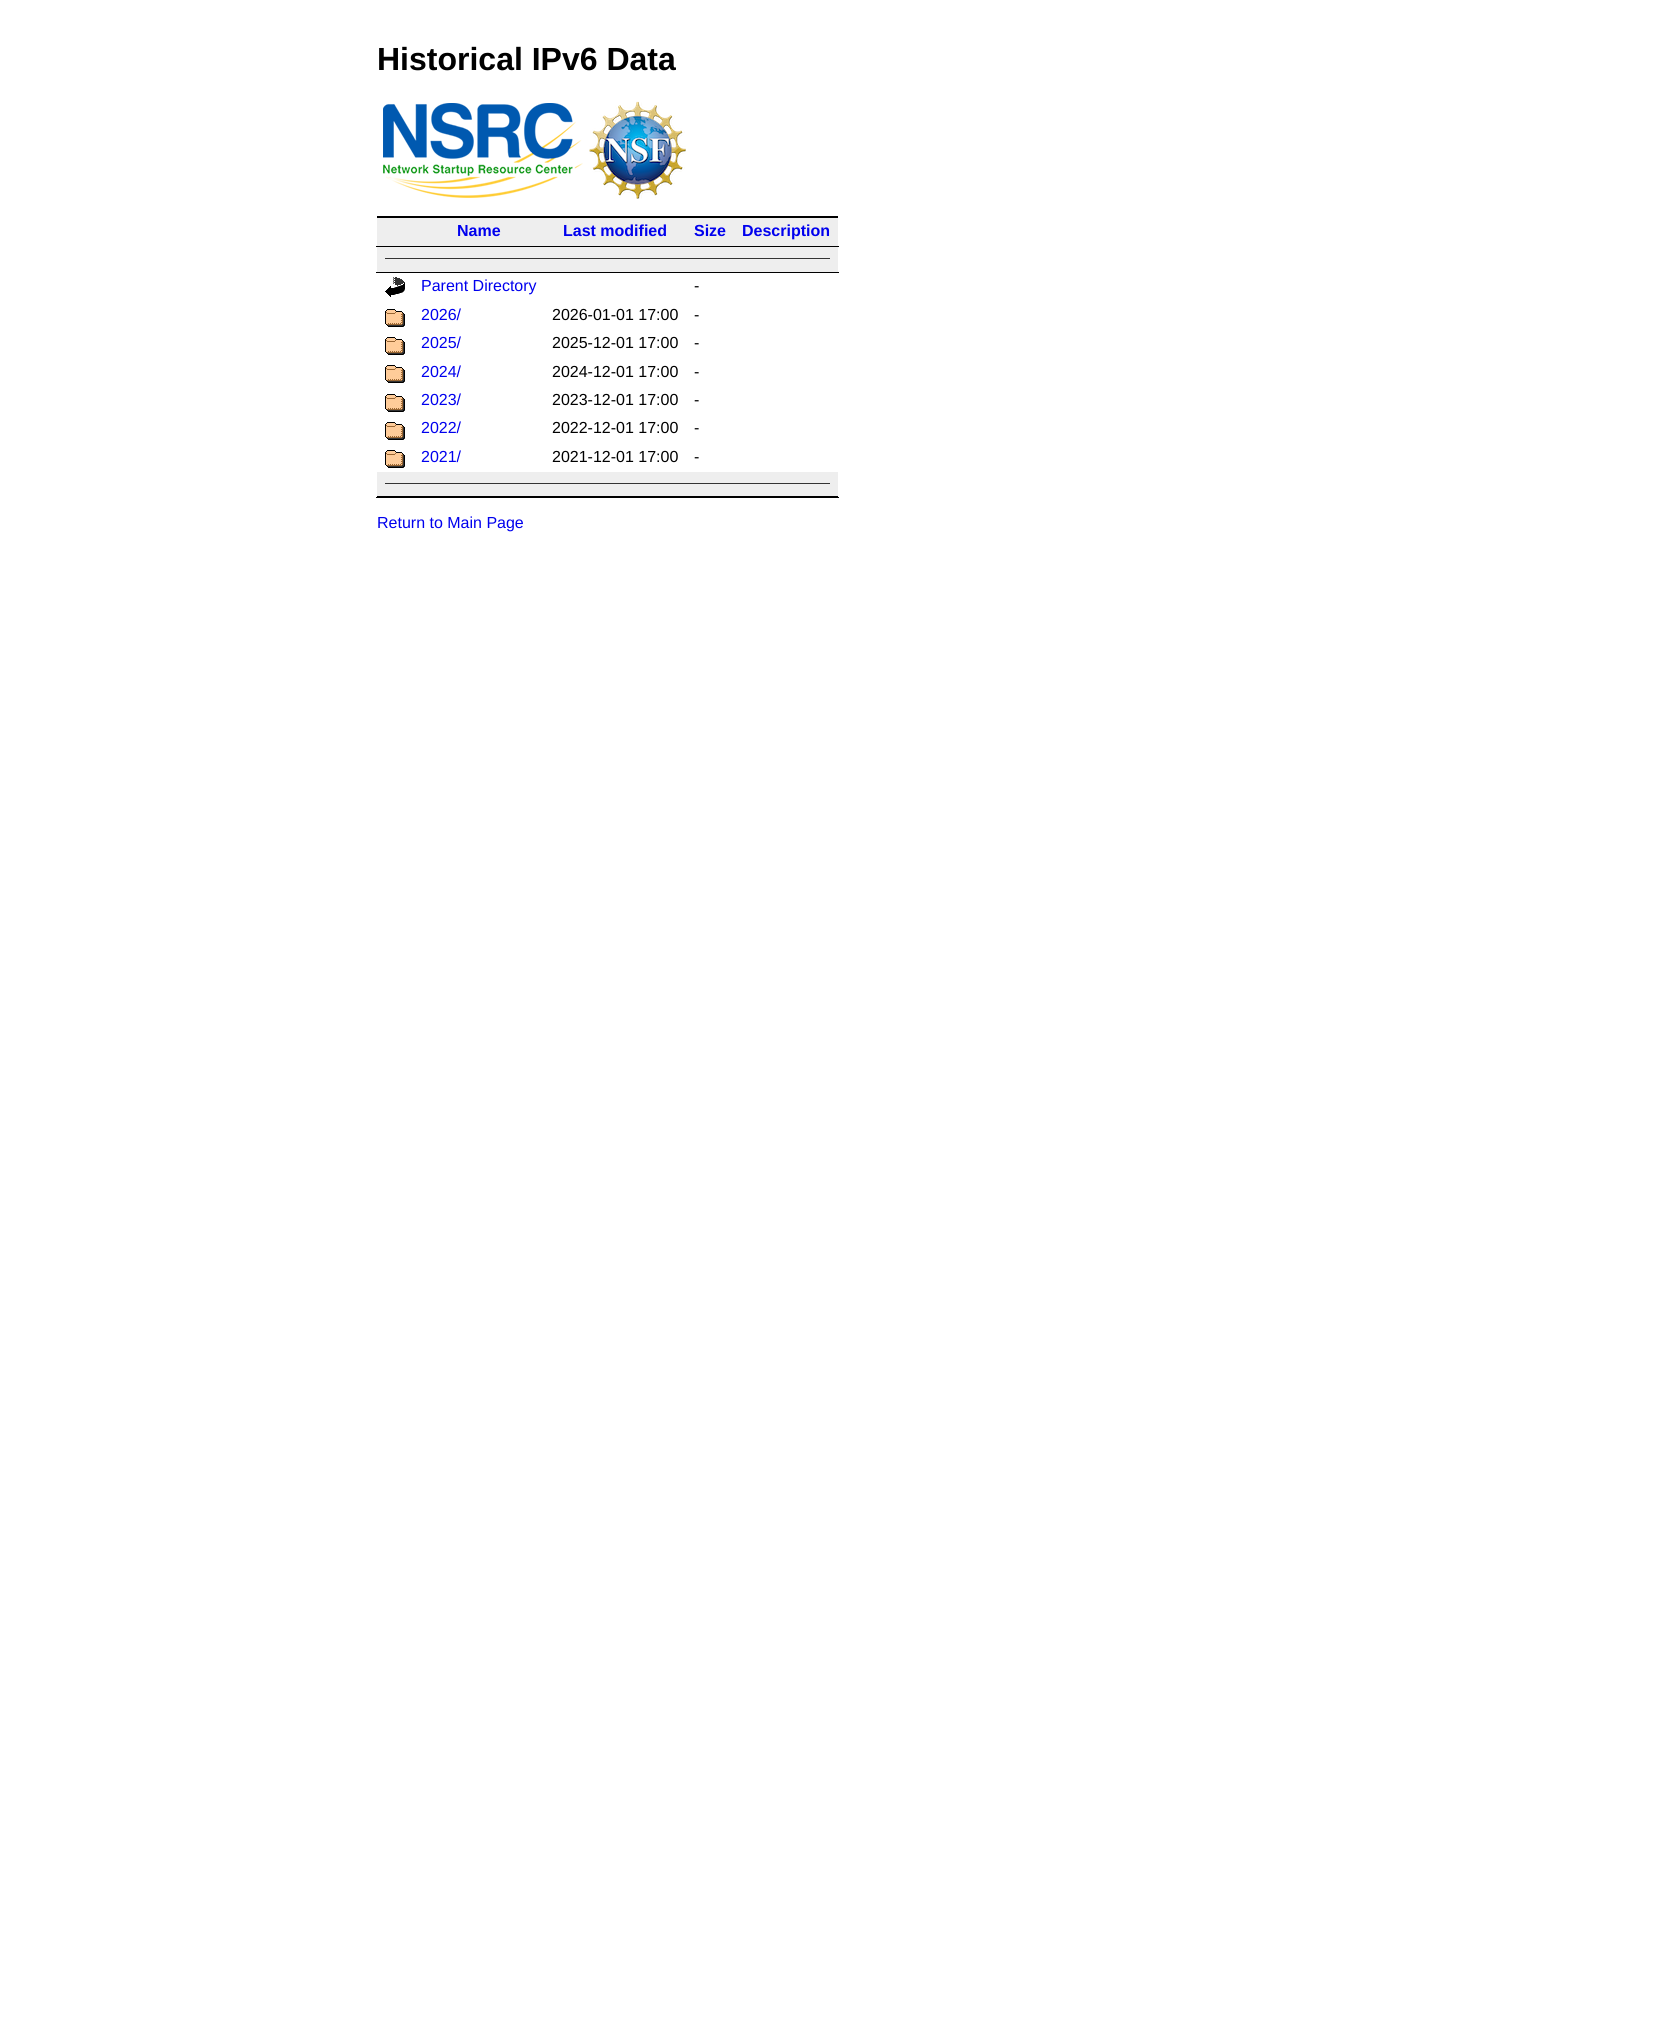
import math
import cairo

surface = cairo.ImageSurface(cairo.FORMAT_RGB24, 1653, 2024)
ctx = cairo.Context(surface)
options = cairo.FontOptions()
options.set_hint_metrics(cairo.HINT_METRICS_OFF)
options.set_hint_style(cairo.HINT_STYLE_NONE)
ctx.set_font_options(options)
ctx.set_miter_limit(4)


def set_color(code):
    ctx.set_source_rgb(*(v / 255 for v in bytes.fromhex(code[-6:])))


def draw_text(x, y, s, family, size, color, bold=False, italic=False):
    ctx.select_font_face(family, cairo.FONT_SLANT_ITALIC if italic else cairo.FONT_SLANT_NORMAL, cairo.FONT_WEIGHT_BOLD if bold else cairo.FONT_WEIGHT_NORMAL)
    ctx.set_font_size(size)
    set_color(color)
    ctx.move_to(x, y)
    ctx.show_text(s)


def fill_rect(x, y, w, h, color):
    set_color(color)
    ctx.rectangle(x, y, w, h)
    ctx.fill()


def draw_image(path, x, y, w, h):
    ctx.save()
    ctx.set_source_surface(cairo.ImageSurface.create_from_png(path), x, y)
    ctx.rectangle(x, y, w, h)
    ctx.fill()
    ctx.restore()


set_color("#ffffff")
ctx.paint()
draw_text(377, 70, "Historical IPv6 Data", "Liberation Sans", 32, "#000000", bold=True)
draw_image("assets/img1.png", 383, 103, 200, 95)
draw_image("assets/img2.png", 589, 101, 97, 98)
fill_rect(377, 216, 461, 2, "#000000")
fill_rect(377, 496, 461, 1, "#000000")
fill_rect(377, 218, 461, 28, "#eeeeee")
draw_text(457, 236, "Name", "Liberation Sans", 16, "#0000ee", bold=True)
draw_text(563, 236, "Last modified", "Liberation Sans", 16, "#0000ee", bold=True)
draw_text(694, 236, "Size", "Liberation Sans", 16, "#0000ee", bold=True)
fill_rect(376, 246, 463, 1, "#000000")
draw_text(742, 236, "Description", "Liberation Sans", 16, "#0000ee", bold=True)
fill_rect(377, 247, 461, 25, "#eeeeee")
fill_rect(376, 272, 463, 1, "#000000")
fill_rect(385, 258, 445, 1, "#333333")
draw_image("assets/img3.png", 385, 277, 20, 20)
draw_text(421, 291, "Parent Directory", "Liberation Sans", 16, "#0000ee")
draw_text(694, 291, "-", "Liberation Sans", 16, "#000000")
draw_image("assets/img4.png", 385, 309, 20, 18)
draw_text(421, 320, "2026/", "Liberation Sans", 16, "#0000ee")
draw_text(552, 320, "2026-01-01 17:00", "Liberation Sans", 16, "#000000")
draw_text(694, 320, "-", "Liberation Sans", 16, "#000000")
draw_image("assets/img4.png", 385, 337, 20, 18)
draw_text(421, 348, "2025/", "Liberation Sans", 16, "#0000ee")
draw_text(552, 348, "2025-12-01 17:00", "Liberation Sans", 16, "#000000")
draw_text(694, 348, "-", "Liberation Sans", 16, "#000000")
draw_image("assets/img4.png", 385, 365, 20, 18)
draw_text(421, 377, "2024/", "Liberation Sans", 16, "#0000ee")
draw_text(552, 377, "2024-12-01 17:00", "Liberation Sans", 16, "#000000")
draw_text(694, 377, "-", "Liberation Sans", 16, "#000000")
draw_image("assets/img4.png", 385, 394, 20, 18)
draw_text(421, 405, "2023/", "Liberation Sans", 16, "#0000ee")
draw_text(552, 405, "2023-12-01 17:00", "Liberation Sans", 16, "#000000")
draw_text(694, 405, "-", "Liberation Sans", 16, "#000000")
draw_image("assets/img4.png", 385, 422, 20, 18)
draw_text(421, 433, "2022/", "Liberation Sans", 16, "#0000ee")
draw_text(552, 433, "2022-12-01 17:00", "Liberation Sans", 16, "#000000")
draw_text(694, 433, "-", "Liberation Sans", 16, "#000000")
draw_image("assets/img4.png", 385, 450, 20, 18)
draw_text(421, 462, "2021/", "Liberation Sans", 16, "#0000ee")
draw_text(552, 462, "2021-12-01 17:00", "Liberation Sans", 16, "#000000")
draw_text(694, 462, "-", "Liberation Sans", 16, "#000000")
fill_rect(377, 472, 461, 24, "#eeeeee")
fill_rect(376, 497, 463, 1, "#000000")
fill_rect(385, 483, 445, 1, "#333333")
draw_text(377, 528, "Return to Main Page", "Liberation Sans", 16, "#0000ee")
surface.write_to_png("output.png")
